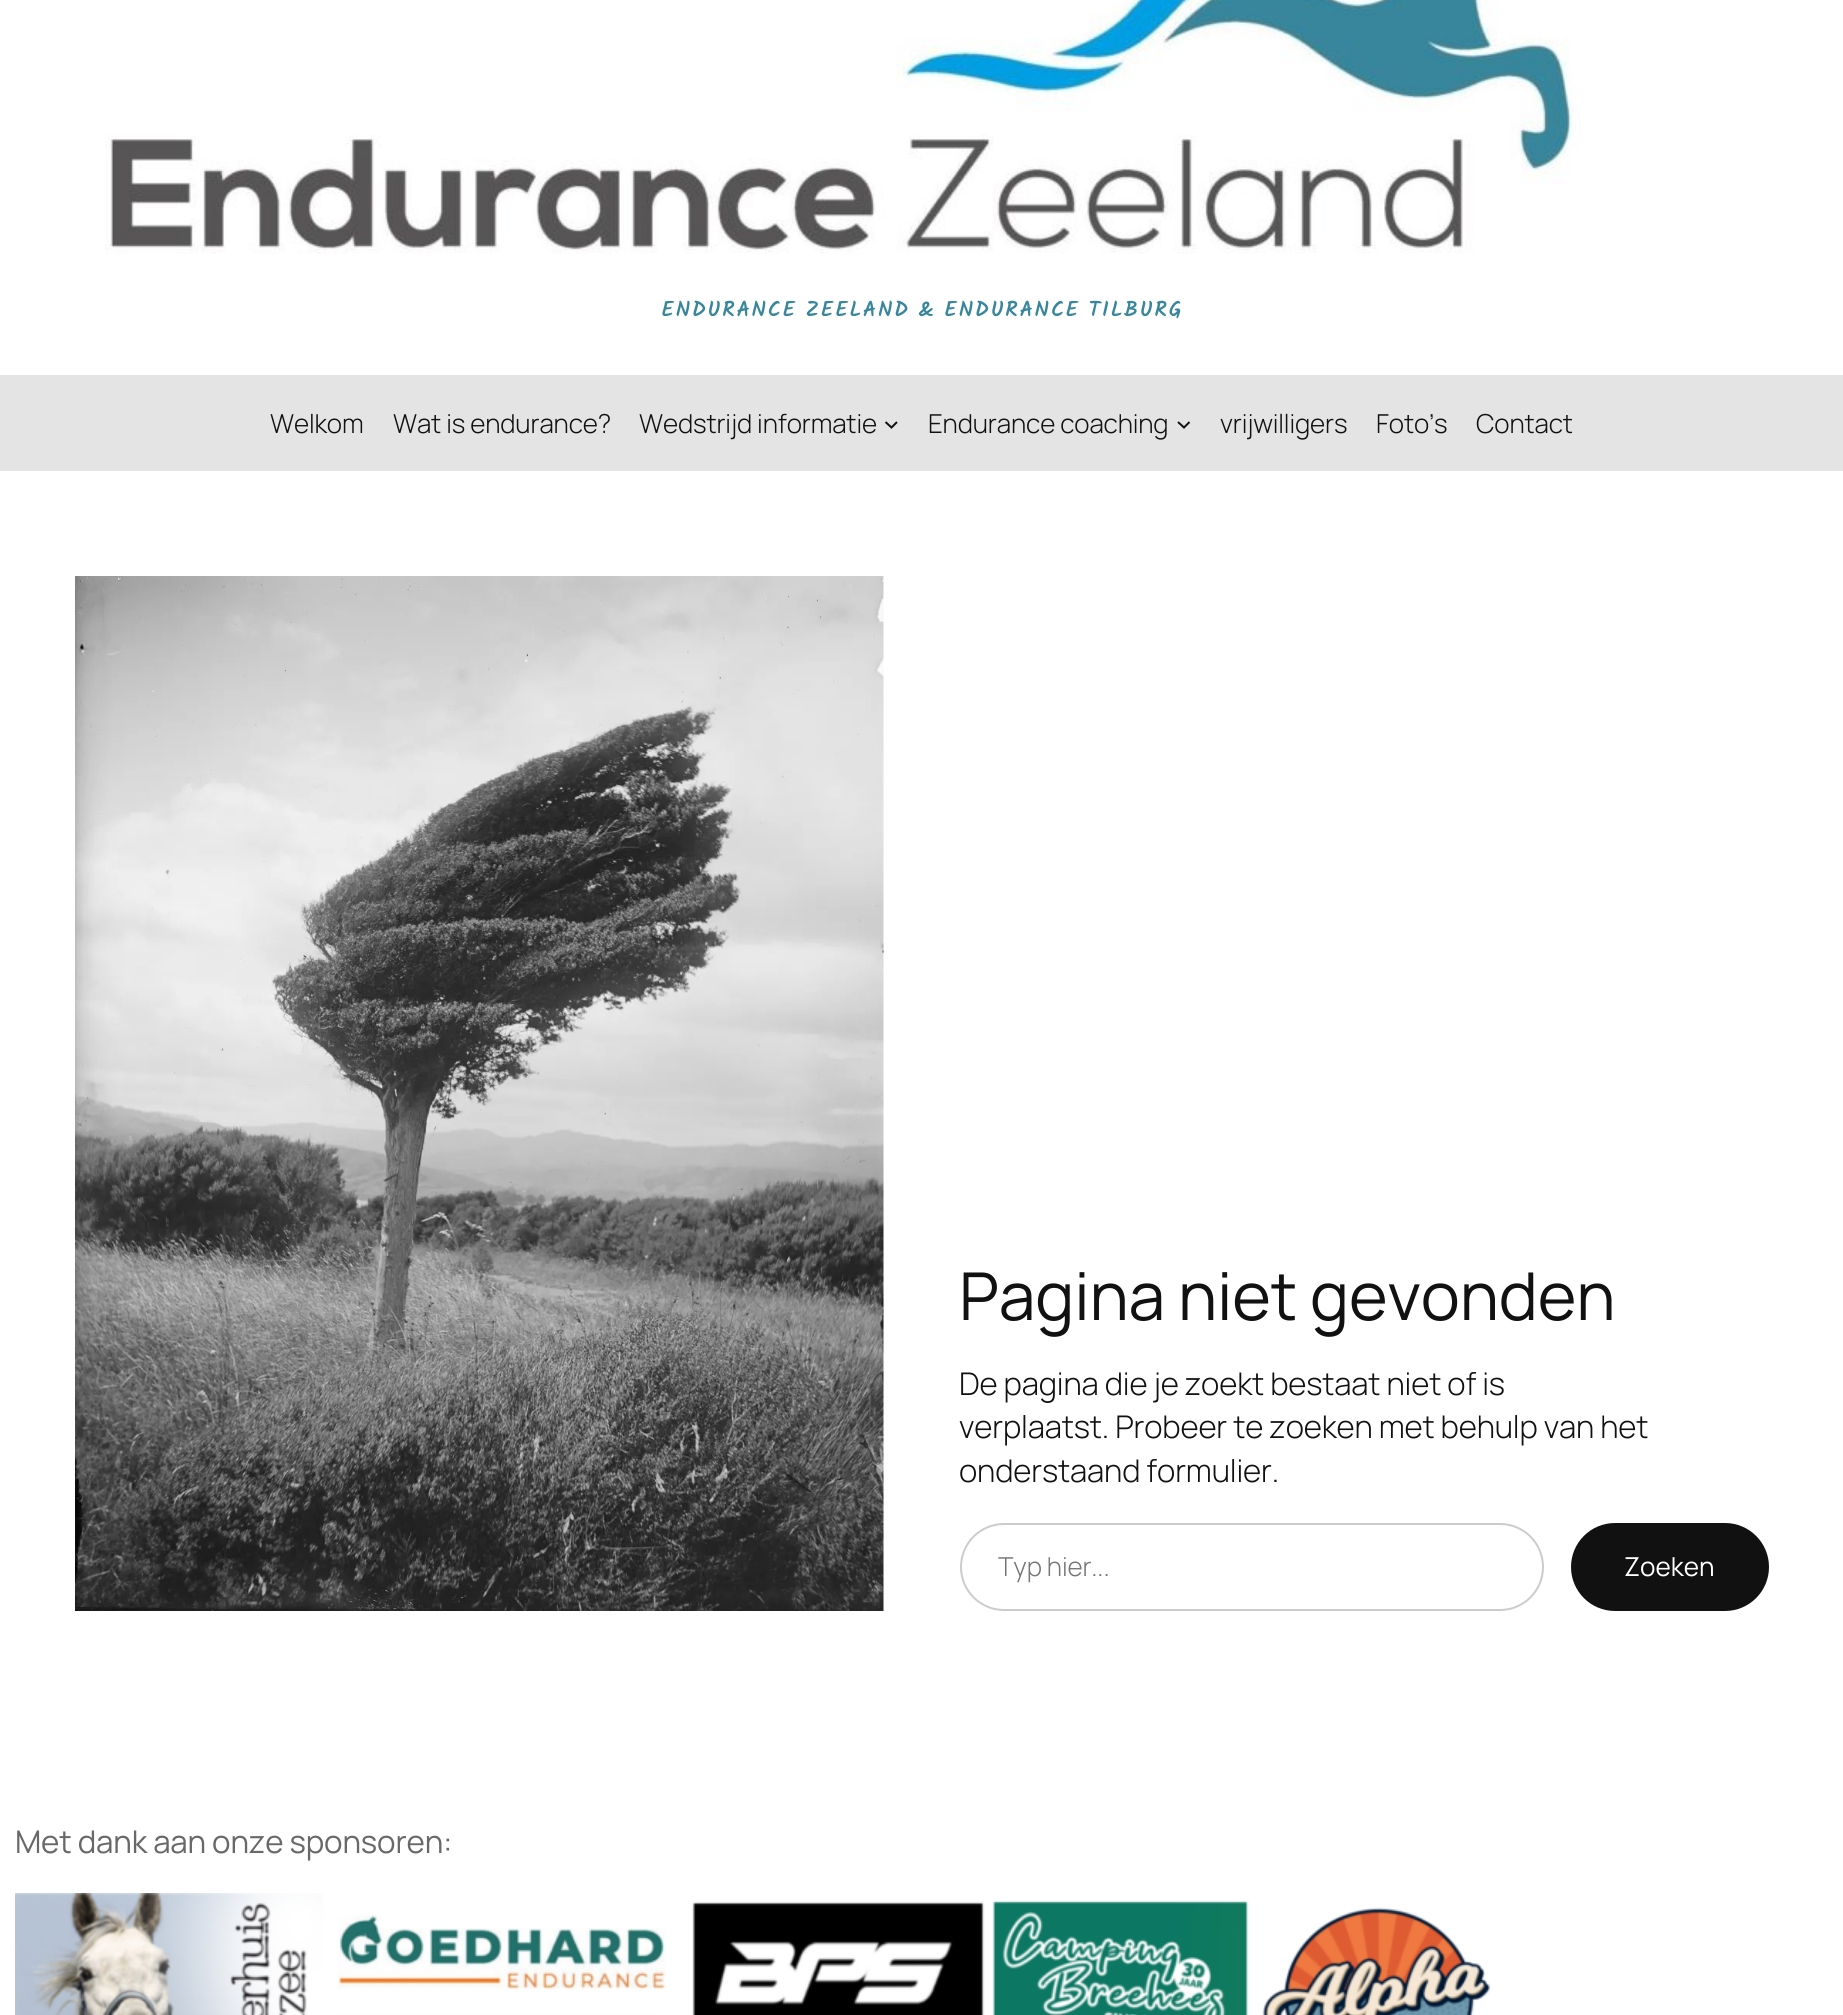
import math
import cairo

surface = cairo.ImageSurface(cairo.FORMAT_RGB24, 1843, 2015)
ctx = cairo.Context(surface)
options = cairo.FontOptions()
options.set_hint_metrics(cairo.HINT_METRICS_OFF)
options.set_hint_style(cairo.HINT_STYLE_NONE)
ctx.set_font_options(options)
ctx.set_miter_limit(4)


def set_color(code):
    ctx.set_source_rgb(*(v / 255 for v in bytes.fromhex(code[-6:])))


def draw_text(x, y, s, family, size, color, bold=False, italic=False):
    ctx.select_font_face(family, cairo.FONT_SLANT_ITALIC if italic else cairo.FONT_SLANT_NORMAL, cairo.FONT_WEIGHT_BOLD if bold else cairo.FONT_WEIGHT_NORMAL)
    ctx.set_font_size(size)
    set_color(color)
    ctx.move_to(x, y)
    ctx.show_text(s)


def draw_spaced(x, y, s, letter, word):
    ctx.move_to(x, y)
    for ch in s:
        ctx.show_text(ch)
        ctx.rel_move_to(letter + word * (ch == ' '), 0)


def fill_rect(x, y, w, h, color):
    set_color(color)
    ctx.rectangle(x, y, w, h)
    ctx.fill()


def rounded_rect(x, y, w, h, r):
    ctx.new_sub_path()
    for i, (u, v) in enumerate([(x + w - r, y + h - r), (x + r, y + h - r), (x + r, y + r), (x + w - r, y + r)]):
        ctx.arc(u, v, r, i * math.pi / 2, (i + 1) * math.pi / 2)
    ctx.close_path()


def draw_image(path, x, y, w, h):
    ctx.save()
    ctx.set_source_surface(cairo.ImageSurface.create_from_png(path), x, y)
    ctx.rectangle(x, y, w, h)
    ctx.fill()
    ctx.restore()


set_color("#ffffff")
ctx.paint()
draw_image("assets/img1.png", 105, 0, 1476, 254)
ctx.select_font_face("Solitreo", cairo.FONT_SLANT_NORMAL, cairo.FONT_WEIGHT_BOLD)
ctx.set_font_size(21)
set_color("#38869b")
draw_spaced(661, 316, "ENDURANCE ZEELAND & ENDURANCE TILBURG", 2.1, 0)
fill_rect(0, 375, 1843, 96, "#e4e4e4")
ctx.select_font_face("Manrope Light")
ctx.set_font_size(26.1)
set_color("#111111")
draw_spaced(270, 433, "Welkom", -0.15, 0)
draw_spaced(393, 433, "Wat is endurance?", -0.15, 0)
draw_spaced(639, 433, "Wedstrijd informatie", -0.15, 0)
ctx.new_path()
ctx.move_to(885.5, 422)
ctx.line_to(891.5, 427.5)
ctx.line_to(897, 422)
ctx.stroke()
draw_spaced(928, 433, "Endurance coaching", -0.15, 0)
ctx.new_path()
ctx.move_to(1178, 422)
ctx.line_to(1184, 427.5)
ctx.line_to(1189.5, 422)
ctx.stroke()
draw_spaced(1220, 433, "vrijwilligers", -0.15, 0)
draw_spaced(1376, 433, "Foto’s", -0.15, 0)
draw_spaced(1476, 433, "Contact", -0.15, 0)
draw_image("assets/img2.png", 75, 576, 809, 1035)
ctx.select_font_face("Manrope")
ctx.set_font_size(66)
draw_spaced(959, 1320, "Pagina niet gevonden", -0.15, 0)
ctx.select_font_face("Manrope Light")
ctx.set_font_size(31.25)
draw_spaced(959, 1395, "De pagina die je zoekt bestaat niet of is", -0.15, 0)
draw_spaced(959, 1438, "verplaatst. Probeer te zoeken met behulp van het", -0.15, 0)
draw_spaced(959, 1482, "onderstaand formulier.", -0.15, 0)
rounded_rect(961, 1524, 582, 86, 43)
set_color("#cccccc")
ctx.stroke()
ctx.set_font_size(26.1)
set_color("#757575")
draw_spaced(998, 1576, "Typ hier...", -0.15, 0)
set_color("#111111")
rounded_rect(1571, 1523, 198, 88, 44)
ctx.fill()
draw_text(1624, 1576, "Zoeken", "Manrope", 26.1, "#ffffff")
ctx.set_font_size(31.25)
set_color("#686868")
draw_spaced(15, 1853, "Met dank aan onze sponsoren:", -0.15, 0)
draw_image("assets/img3.png", 15, 1893, 1476, 122)
surface.write_to_png("output.png")
